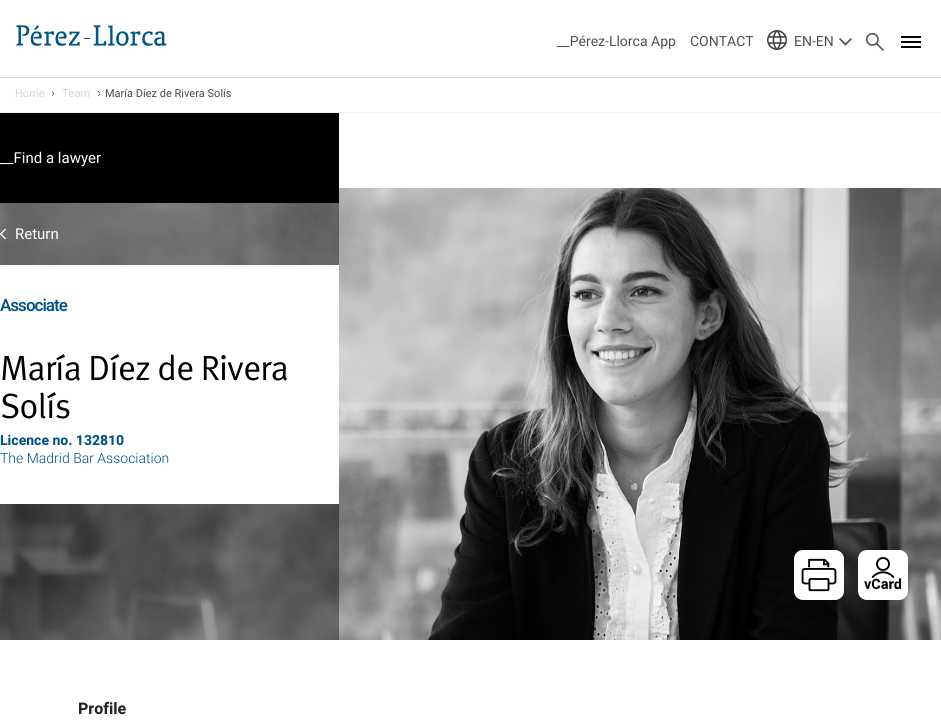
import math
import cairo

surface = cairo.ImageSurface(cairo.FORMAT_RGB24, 941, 727)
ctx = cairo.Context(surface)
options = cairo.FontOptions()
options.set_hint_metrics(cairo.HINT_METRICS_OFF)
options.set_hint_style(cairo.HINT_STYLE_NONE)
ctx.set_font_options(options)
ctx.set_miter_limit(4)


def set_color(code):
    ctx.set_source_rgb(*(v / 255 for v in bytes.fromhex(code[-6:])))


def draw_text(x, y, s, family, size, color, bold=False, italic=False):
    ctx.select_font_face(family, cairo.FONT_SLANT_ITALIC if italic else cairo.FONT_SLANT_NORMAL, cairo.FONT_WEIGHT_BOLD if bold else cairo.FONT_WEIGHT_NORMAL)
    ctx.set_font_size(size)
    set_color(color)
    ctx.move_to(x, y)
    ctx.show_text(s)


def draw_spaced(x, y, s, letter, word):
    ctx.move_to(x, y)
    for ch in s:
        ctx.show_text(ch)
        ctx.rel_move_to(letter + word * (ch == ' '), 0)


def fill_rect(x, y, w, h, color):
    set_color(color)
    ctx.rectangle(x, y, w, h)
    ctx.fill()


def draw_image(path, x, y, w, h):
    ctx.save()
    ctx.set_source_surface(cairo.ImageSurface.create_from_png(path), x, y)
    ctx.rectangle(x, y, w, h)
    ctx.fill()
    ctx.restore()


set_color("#ffffff")
ctx.paint()
fill_rect(0, 77, 941, 1, "#d4d8db")
draw_image("assets/img1.png", 16, 25, 151, 21)
draw_text(557, 46, "__Pérez-Llorca App", "Heebo", 14, "#4d5154")
draw_text(690, 46, "CONTACT", "Heebo", 14, "#4d5154")
draw_image("assets/img2.png", 767, 30, 20, 20)
draw_text(794, 46, "EN-EN", "Heebo", 14, "#4d5154")
draw_image("assets/img3.png", 839, 38, 13, 8)
draw_image("assets/img4.png", 866, 33, 18, 18)
fill_rect(901, 41, 20, 2, "#020203")
fill_rect(901, 36, 20, 2, "#020203")
fill_rect(901, 46, 20, 2, "#020203")
fill_rect(0, 112, 941, 1, "#f0f3f4")
draw_text(15, 97, "Home", "Heebo", 11, "#d4d4d4")
ctx.save()
ctx.rectangle(52, 90, 3, 7)
ctx.clip()
ctx.new_path()
ctx.move_to(51.5, 91)
ctx.line_to(54, 93.5)
ctx.line_to(51.5, 96)
set_color("#1d1d1b")
ctx.set_line_width(0.6)
ctx.set_line_cap(cairo.LINE_CAP_ROUND)
ctx.set_line_join(cairo.LINE_JOIN_ROUND)
ctx.stroke()
ctx.restore()
draw_text(62, 97, "Team", "Heebo", 11, "#d4d4d4")
ctx.save()
ctx.rectangle(97, 90, 3, 7)
ctx.clip()
ctx.new_path()
ctx.move_to(98, 91)
ctx.line_to(100.5, 93.5)
ctx.line_to(98, 96)
set_color("#1d1d1b")
ctx.set_line_width(0.6)
ctx.set_line_cap(cairo.LINE_CAP_ROUND)
ctx.set_line_join(cairo.LINE_JOIN_ROUND)
ctx.stroke()
ctx.restore()
draw_text(105, 97, "María Díez de Rivera Solís", "Heebo", 11, "#4a4a4a")
draw_image("assets/img5.png", 0, 188, 941, 452)
ctx.set_source_rgba(0, 0, 0, 0.4)
ctx.rectangle(0, 203, 339, 437)
ctx.fill()
fill_rect(0, 113, 339, 90, "#000000")
draw_text(0, 163, "__Find a lawyer", "Heebo", 15, "#ffffff")
draw_image("assets/img6.png", 0, 228, 6, 12)
draw_text(15, 239, "Return", "Heebo", 15, "#ffffff")
fill_rect(0, 265, 339, 239, "#ffffff")
ctx.select_font_face("Heebo Medium")
ctx.set_font_size(17)
set_color("#005188")
draw_spaced(0, 311, "Associate", -1, 0)
ctx.select_font_face("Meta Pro")
ctx.set_font_size(35)
set_color("#000000")
draw_spaced(0, 380, "María Díez de Rivera", -1, 0)
draw_spaced(0, 418, "Solís", -1, 0)
draw_text(0, 445, "Licence no. 132810", "Heebo", 14, "#005188", bold=True)
draw_text(0, 463, "The Madrid Bar Association", "Heebo Light", 14, "#005188")
draw_image("assets/img7.png", 794, 550, 50, 50)
draw_image("assets/img8.png", 858, 550, 50, 50)
draw_text(78, 714, "Profile", "Heebo", 16, "#212529", bold=True)
surface.write_to_png("output.png")
